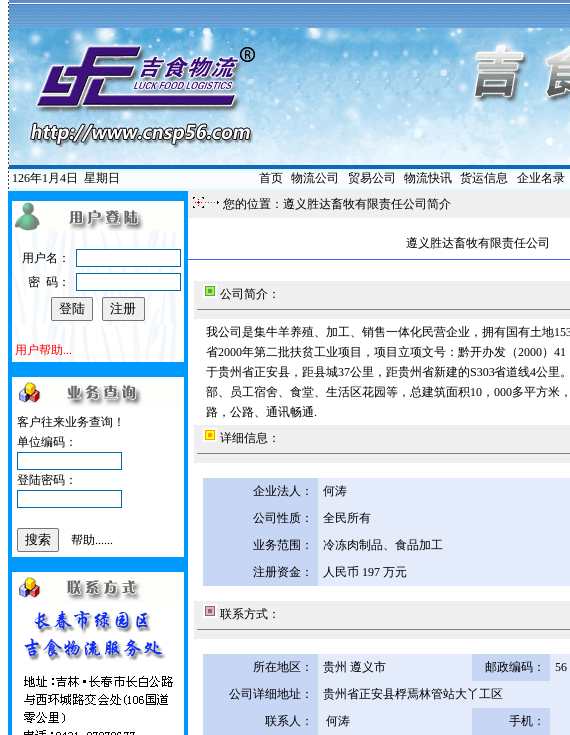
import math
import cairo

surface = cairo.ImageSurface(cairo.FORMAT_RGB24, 570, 735)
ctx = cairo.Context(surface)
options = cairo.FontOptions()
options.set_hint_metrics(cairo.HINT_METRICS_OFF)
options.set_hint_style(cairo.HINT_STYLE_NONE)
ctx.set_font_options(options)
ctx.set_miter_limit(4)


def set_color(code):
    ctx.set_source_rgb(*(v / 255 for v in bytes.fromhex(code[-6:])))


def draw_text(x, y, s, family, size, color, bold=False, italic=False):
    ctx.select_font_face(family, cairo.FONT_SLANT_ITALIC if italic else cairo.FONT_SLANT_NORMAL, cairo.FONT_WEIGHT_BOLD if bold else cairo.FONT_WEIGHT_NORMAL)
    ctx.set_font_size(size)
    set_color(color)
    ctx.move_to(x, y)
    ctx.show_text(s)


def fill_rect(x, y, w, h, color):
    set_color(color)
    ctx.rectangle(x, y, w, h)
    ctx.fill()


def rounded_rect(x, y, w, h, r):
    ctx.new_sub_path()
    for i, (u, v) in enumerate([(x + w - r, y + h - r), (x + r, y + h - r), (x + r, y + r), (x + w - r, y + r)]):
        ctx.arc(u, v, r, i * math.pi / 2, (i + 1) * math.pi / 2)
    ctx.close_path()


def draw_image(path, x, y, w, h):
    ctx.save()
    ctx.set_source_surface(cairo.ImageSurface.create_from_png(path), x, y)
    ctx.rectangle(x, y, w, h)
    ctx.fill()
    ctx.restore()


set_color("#ffffff")
ctx.paint()
draw_image("assets/img1.png", 8, 0, 1, 28)
fill_rect(9, 0, 561, 3, "#5f8dc8")
draw_image("assets/img2.png", 9, 4, 561, 24)
draw_image("assets/img3.png", 8, 28, 1, 137)
draw_image("assets/img4.png", 9, 28, 561, 137)
draw_image("assets/img5.png", 8, 165, 1, 26)
draw_image("assets/img6.png", 9, 165, 561, 26)
draw_text(12, 182, "126", "Liberation Serif", 12, "#000000")
draw_text(30, 182, "年", "WenQuanYi Zen Hei Medium", 12, "#000000")
draw_text(42, 182, "1", "Liberation Serif", 12, "#000000")
draw_text(48, 182, "月", "WenQuanYi Zen Hei Medium", 12, "#000000")
draw_text(60, 182, "4", "Liberation Serif", 12, "#000000")
draw_text(66, 182, "日", "WenQuanYi Zen Hei Medium", 12, "#000000")
draw_text(84, 182, "星期日", "WenQuanYi Zen Hei Medium", 12, "#000000")
draw_text(259, 182, "首页", "WenQuanYi Zen Hei Medium", 12, "#000000")
draw_text(291, 182, "物流公司", "WenQuanYi Zen Hei Medium", 12, "#000000")
draw_text(348, 182, "贸易公司", "WenQuanYi Zen Hei Medium", 12, "#000000")
draw_text(404, 182, "物流快讯", "WenQuanYi Zen Hei Medium", 12, "#000000")
draw_text(460, 182, "货运信息", "WenQuanYi Zen Hei Medium", 12, "#000000")
draw_text(517, 182, "企业名录", "WenQuanYi Zen Hei Medium", 12, "#000000")
fill_rect(8, 191, 180, 544, "#0099ff")
fill_rect(12, 201, 172, 30, "#ffffff")
draw_image("assets/img7.png", 14, 201, 168, 30)
draw_image("assets/img8.png", 12, 231, 172, 131)
draw_text(22, 262, "用户名：", "WenQuanYi Zen Hei Medium", 12, "#000000")
fill_rect(82, 250, 94, 16, "#ffffff")
ctx.rectangle(76.5, 249.5, 104, 17)
set_color("#006ca3")
ctx.set_line_width(1)
ctx.stroke()
draw_text(28, 286, "密", "WenQuanYi Zen Hei Medium", 12, "#000000")
draw_text(46, 286, "码：", "WenQuanYi Zen Hei Medium", 12, "#000000")
fill_rect(81, 274, 95, 16, "#ffffff")
ctx.rectangle(76.5, 273.5, 104, 17)
set_color("#006ca3")
ctx.stroke()
set_color("#efefef")
rounded_rect(51.5, 297.5, 41, 23, 1.5)
ctx.fill_preserve()
set_color("#767676")
ctx.stroke()
draw_text(59, 313, "登陆", "WenQuanYi Zen Hei Medium", 13, "#000000")
set_color("#efefef")
rounded_rect(102.5, 297.5, 42, 23, 1.5)
ctx.fill_preserve()
set_color("#767676")
ctx.stroke()
draw_text(110, 313, "注册", "WenQuanYi Zen Hei Medium", 13, "#000000")
draw_text(15, 354, "用户帮助", "WenQuanYi Zen Hei Medium", 12, "#ff0000")
draw_text(63, 354, "...", "Liberation Serif", 12, "#ff0000")
fill_rect(12, 377, 172, 180, "#ffffff")
draw_image("assets/img9.png", 15, 377, 166, 30)
draw_text(17, 426, "客户往来业务查询！", "WenQuanYi Zen Hei Medium", 12, "#000000")
draw_text(17, 446, "单位编码：", "WenQuanYi Zen Hei Medium", 12, "#000000")
ctx.rectangle(17.5, 452.5, 104, 17)
set_color("#006ca3")
ctx.stroke()
draw_text(17, 484, "登陆密码：", "WenQuanYi Zen Hei Medium", 12, "#000000")
ctx.rectangle(17.5, 490.5, 104, 17)
set_color("#006ca3")
ctx.stroke()
set_color("#efefef")
rounded_rect(17.5, 528.5, 41, 23, 1.5)
ctx.fill_preserve()
set_color("#767676")
ctx.stroke()
draw_text(25, 544, "搜索", "WenQuanYi Zen Hei Medium", 13, "#000000")
draw_text(71, 544, "帮助", "WenQuanYi Zen Hei Medium", 12, "#000000")
draw_text(95, 544, "......", "Liberation Serif", 12, "#000000")
fill_rect(12, 572, 172, 163, "#ffffff")
draw_image("assets/img10.png", 15, 572, 166, 30)
draw_image("assets/img11.png", 24, 610, 149, 125)
fill_rect(188, 191, 382, 27, "#efefef")
draw_image("assets/img12.png", 193, 197, 26, 11)
draw_text(223, 208, "您的位置：遵义胜达畜牧有限责任公司简介", "WenQuanYi Zen Hei Medium", 12, "#000000")
draw_text(406, 247, "遵义胜达畜牧有限责任公司", "WenQuanYi Zen Hei Medium", 12, "#000000")
fill_rect(188, 259, 382, 1, "#3366ff")
fill_rect(194, 281, 376, 38, "#efefef")
draw_image("assets/img13.png", 203, 284, 14, 14)
draw_text(220, 298, "公司简介：", "WenQuanYi Zen Hei Medium", 12, "#000000")
fill_rect(197, 309, 373, 1, "#808080")
draw_text(206, 336, "我公司是集牛羊养殖、加工、销售一体化民营企业，拥有国有土地", "WenQuanYi Zen Hei Medium", 12, "#000000")
draw_text(554, 336, "153", "Liberation Serif", 12, "#000000")
draw_text(206, 356, "省", "WenQuanYi Zen Hei Medium", 12, "#000000")
draw_text(218, 356, "2000", "Liberation Serif", 12, "#000000")
draw_text(242, 356, "年第二批扶贫工业项目，项目立项文号：黔开办发（", "WenQuanYi Zen Hei Medium", 12, "#000000")
draw_text(518, 356, "2000", "Liberation Serif", 12, "#000000")
draw_text(542, 356, "）", "WenQuanYi Zen Hei Medium", 12, "#000000")
draw_text(554, 356, "41", "Liberation Serif", 12, "#000000")
draw_text(206, 376, "于贵州省正安县，距县城", "WenQuanYi Zen Hei Medium", 12, "#000000")
draw_text(338, 376, "37", "Liberation Serif", 12, "#000000")
draw_text(350, 376, "公里，距贵州省新建的", "WenQuanYi Zen Hei Medium", 12, "#000000")
draw_text(470, 376, "S303", "Liberation Serif", 12, "#000000")
draw_text(494, 376, "省道线", "WenQuanYi Zen Hei Medium", 12, "#000000")
draw_text(530, 376, "4", "Liberation Serif", 12, "#000000")
draw_text(536, 376, "公里。", "WenQuanYi Zen Hei Medium", 12, "#000000")
draw_text(206, 396, "部、员工宿舍、食堂、生活区花园等，总建筑面积", "WenQuanYi Zen Hei Medium", 12, "#000000")
draw_text(470, 396, "10", "Liberation Serif", 12, "#000000")
draw_text(482, 396, "，", "WenQuanYi Zen Hei Medium", 12, "#000000")
draw_text(494, 396, "000", "Liberation Serif", 12, "#000000")
draw_text(512, 396, "多平方米，", "WenQuanYi Zen Hei Medium", 12, "#000000")
draw_text(206, 416, "路，公路、通讯畅通", "WenQuanYi Zen Hei Medium", 12, "#000000")
draw_text(314, 416, ".", "Liberation Serif", 12, "#000000")
fill_rect(194, 425, 376, 38, "#efefef")
draw_image("assets/img14.png", 203, 428, 14, 14)
draw_text(220, 442, "详细信息：", "WenQuanYi Zen Hei Medium", 12, "#000000")
fill_rect(197, 453, 373, 1, "#808080")
fill_rect(203, 478, 115, 108, "#c7d6f5")
draw_text(253, 495, "企业法人：", "WenQuanYi Zen Hei Medium", 12, "#000000")
fill_rect(318, 478, 252, 108, "#e4ecfb")
draw_text(323, 495, "何涛", "WenQuanYi Zen Hei Medium", 12, "#000000")
draw_text(253, 522, "公司性质：", "WenQuanYi Zen Hei Medium", 12, "#000000")
draw_text(323, 522, "全民所有", "WenQuanYi Zen Hei Medium", 12, "#000000")
draw_text(253, 549, "业务范围：", "WenQuanYi Zen Hei Medium", 12, "#000000")
draw_text(323, 549, "冷冻肉制品、食品加工", "WenQuanYi Zen Hei Medium", 12, "#000000")
draw_text(253, 576, "注册资金：", "WenQuanYi Zen Hei Medium", 12, "#000000")
draw_text(323, 576, "人民币", "WenQuanYi Zen Hei Medium", 12, "#000000")
draw_text(362, 576, "197", "Liberation Serif", 12, "#000000")
draw_text(383, 576, "万元", "WenQuanYi Zen Hei Medium", 12, "#000000")
fill_rect(194, 601, 376, 38, "#efefef")
draw_image("assets/img15.png", 203, 604, 14, 14)
draw_text(220, 618, "联系方式：", "WenQuanYi Zen Hei Medium", 12, "#000000")
fill_rect(197, 629, 373, 1, "#808080")
fill_rect(203, 654, 115, 81, "#c7d6f5")
draw_text(253, 671, "所在地区：", "WenQuanYi Zen Hei Medium", 12, "#000000")
fill_rect(318, 654, 154, 27, "#e4ecfb")
draw_text(323, 671, "贵州", "WenQuanYi Zen Hei Medium", 12, "#000000")
draw_text(350, 671, "遵义市", "WenQuanYi Zen Hei Medium", 12, "#000000")
fill_rect(472, 654, 78, 27, "#c7d6f5")
draw_text(485, 671, "邮政编码：", "WenQuanYi Zen Hei Medium", 12, "#000000")
fill_rect(550, 654, 20, 27, "#e4ecfb")
draw_text(555, 671, "56", "Liberation Serif", 12, "#000000")
draw_text(229, 698, "公司详细地址：", "WenQuanYi Zen Hei Medium", 12, "#000000")
fill_rect(318, 681, 252, 27, "#e4ecfb")
draw_text(323, 698, "贵州省正安县桴焉林管站大丫工区", "WenQuanYi Zen Hei Medium", 12, "#000000")
draw_text(265, 725, "联系人：", "WenQuanYi Zen Hei Medium", 12, "#000000")
fill_rect(318, 708, 154, 27, "#e4ecfb")
draw_text(326, 725, "何涛", "WenQuanYi Zen Hei Medium", 12, "#000000")
fill_rect(472, 708, 78, 27, "#c7d6f5")
draw_text(509, 725, "手机：", "WenQuanYi Zen Hei Medium", 12, "#000000")
fill_rect(550, 708, 20, 27, "#e4ecfb")
surface.write_to_png("output.png")
